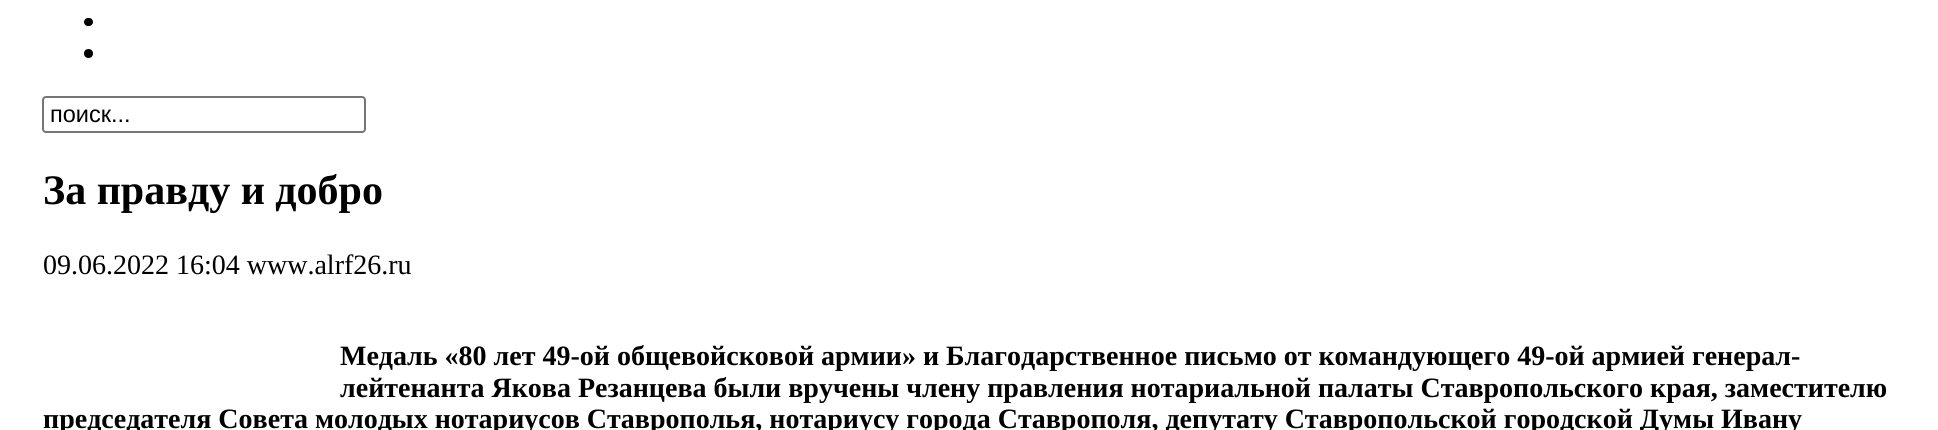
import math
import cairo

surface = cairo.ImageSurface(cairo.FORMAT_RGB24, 1938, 430)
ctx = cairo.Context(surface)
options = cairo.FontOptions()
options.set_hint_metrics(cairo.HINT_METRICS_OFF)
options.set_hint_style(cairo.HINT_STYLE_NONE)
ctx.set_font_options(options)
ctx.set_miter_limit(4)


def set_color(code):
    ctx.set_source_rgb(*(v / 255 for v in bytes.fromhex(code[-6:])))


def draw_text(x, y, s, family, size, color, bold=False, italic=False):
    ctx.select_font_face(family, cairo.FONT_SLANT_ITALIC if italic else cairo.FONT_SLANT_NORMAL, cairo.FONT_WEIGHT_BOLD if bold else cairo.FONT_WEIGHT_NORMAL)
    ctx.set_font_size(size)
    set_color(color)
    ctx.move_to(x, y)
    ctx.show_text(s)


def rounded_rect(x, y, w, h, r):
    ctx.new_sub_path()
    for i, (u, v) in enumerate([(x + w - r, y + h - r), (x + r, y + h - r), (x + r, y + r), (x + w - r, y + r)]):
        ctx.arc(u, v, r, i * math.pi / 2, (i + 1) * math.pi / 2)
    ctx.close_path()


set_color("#ffffff")
ctx.paint()
set_color("#000000")
rounded_rect(84, 18, 9, 8, 4)
ctx.fill()
ctx.arc(88.5, 53.5, 4.5, 0, 2 * math.pi)
ctx.fill()
rounded_rect(43, 97, 322, 35, 3)
set_color("#767676")
ctx.stroke()
draw_text(50, 122, "поиск...", "Liberation Sans", 23.5, "#000000")
draw_text(43, 204, "За правду и добро", "Liberation Serif", 42, "#000000", bold=True)
draw_text(43, 274, "09.06.2022 16:04 www.alrf26.ru", "Liberation Serif", 28, "#000000")
draw_text(340, 365, "Медаль «80 лет 49-ой общевойсковой армии» и Благодарственное письмо от командующего 49-ой армией генерал-", "Liberation Serif", 28, "#000000", bold=True)
draw_text(340, 397, "лейтенанта Якова Резанцева были вручены члену правления нотариальной палаты Ставропольского края, заместителю", "Liberation Serif", 28, "#000000", bold=True)
draw_text(43, 428, "председателя Совета молодых нотариусов Ставрополья, нотариусу города Ставрополя, депутату Ставропольской городской Думы Ивану", "Liberation Serif", 28, "#000000", bold=True)
surface.write_to_png("output.png")
